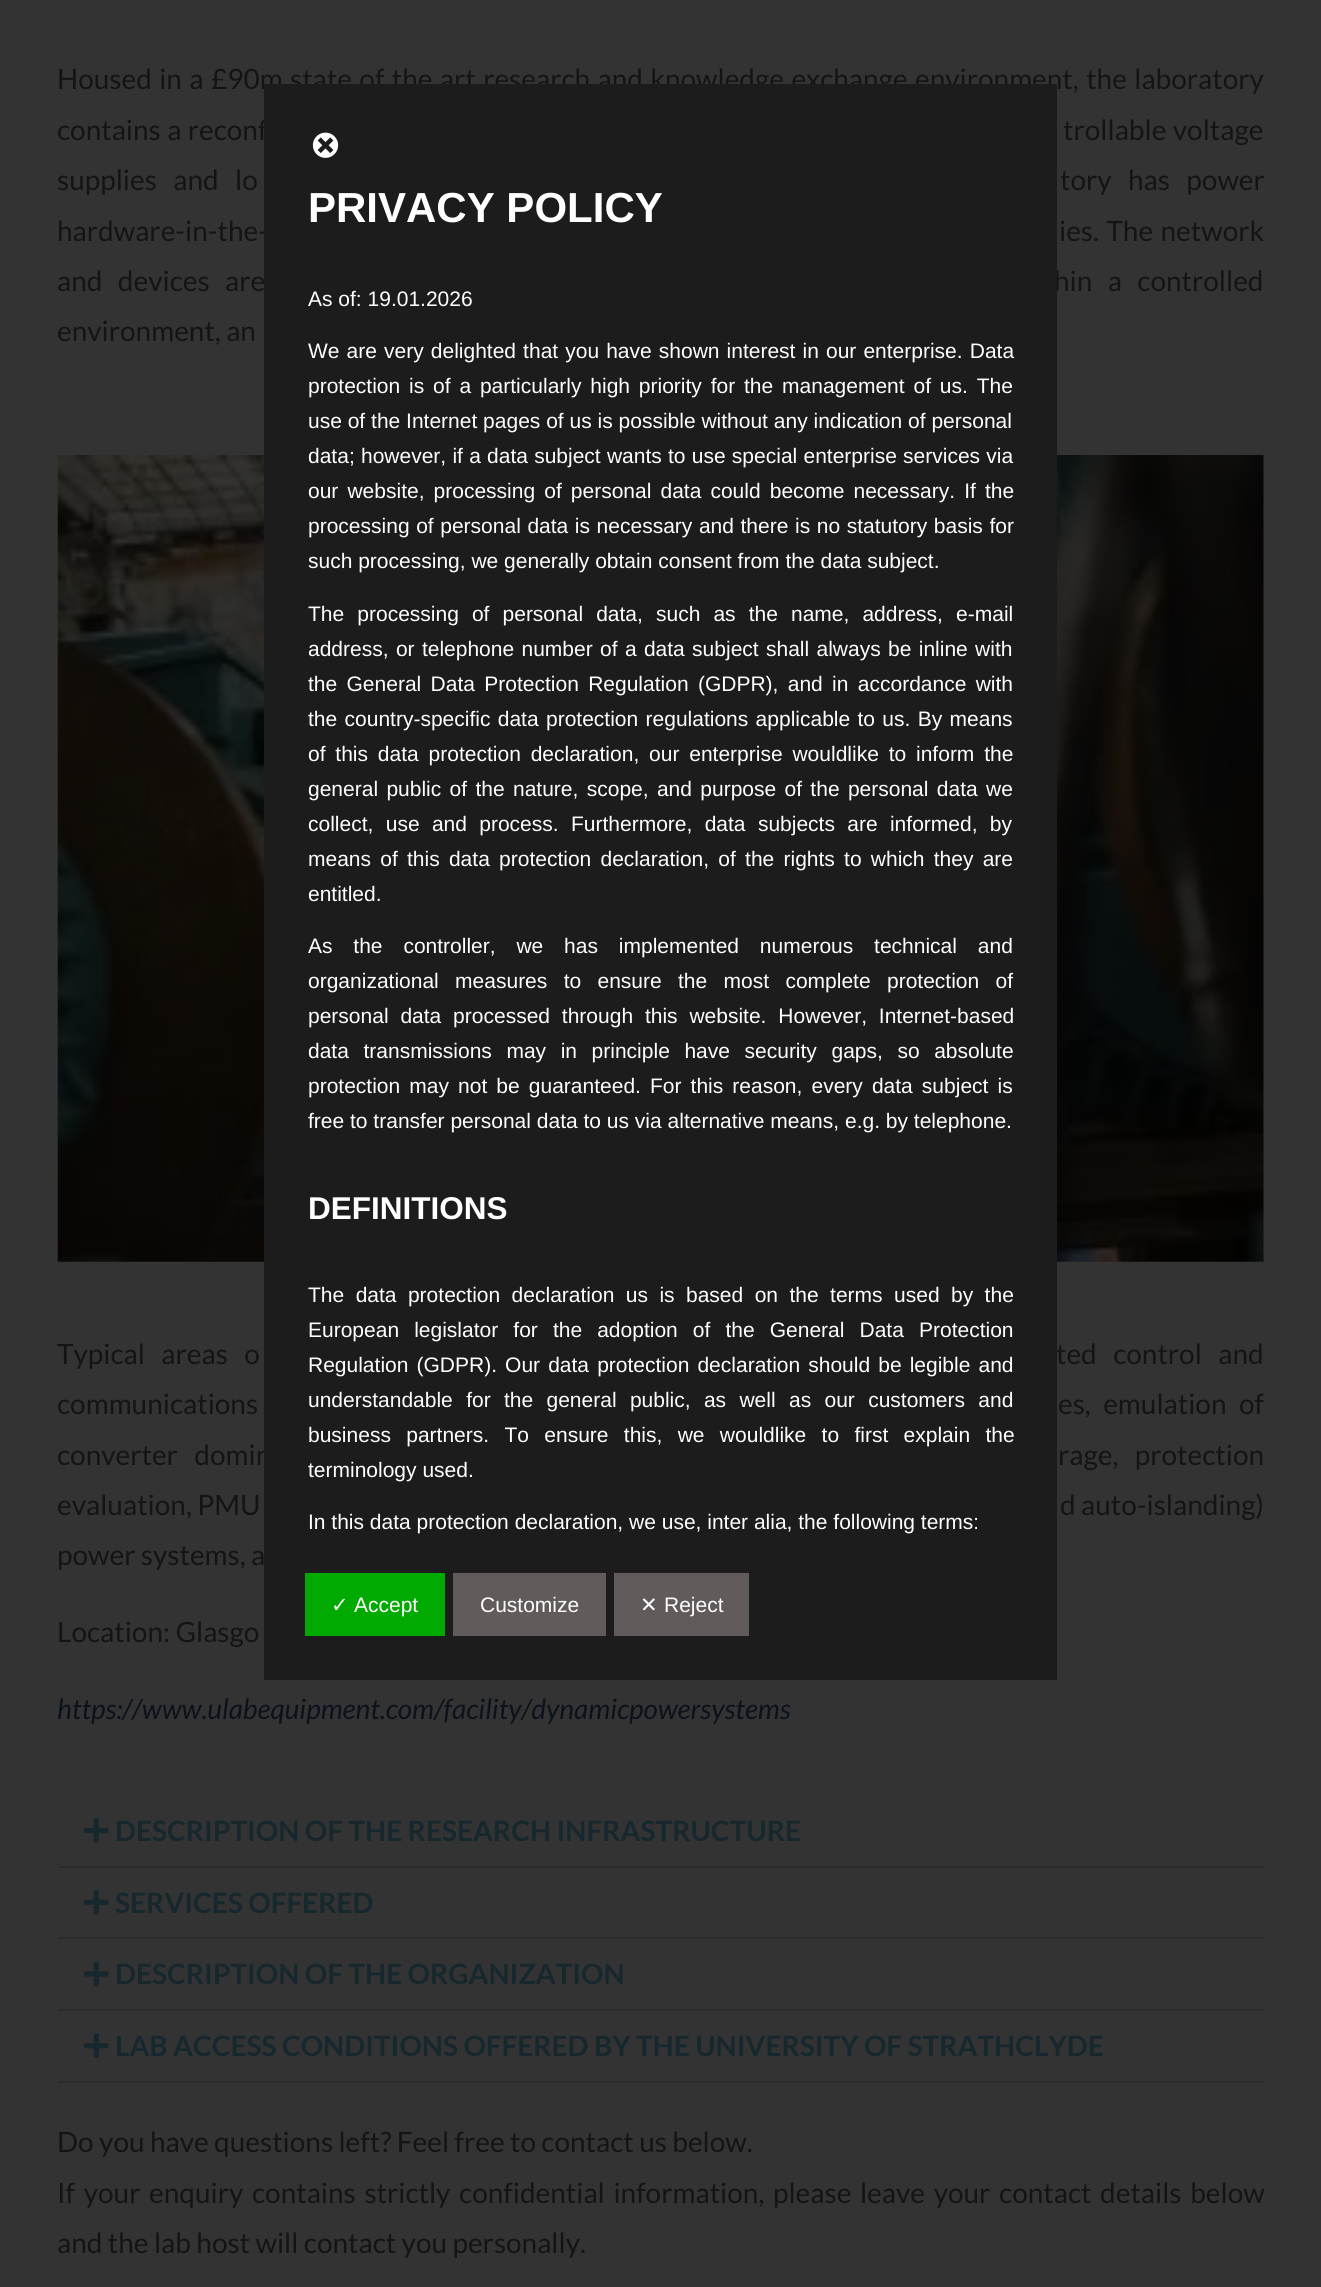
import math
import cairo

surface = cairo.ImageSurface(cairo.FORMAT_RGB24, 1321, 2287)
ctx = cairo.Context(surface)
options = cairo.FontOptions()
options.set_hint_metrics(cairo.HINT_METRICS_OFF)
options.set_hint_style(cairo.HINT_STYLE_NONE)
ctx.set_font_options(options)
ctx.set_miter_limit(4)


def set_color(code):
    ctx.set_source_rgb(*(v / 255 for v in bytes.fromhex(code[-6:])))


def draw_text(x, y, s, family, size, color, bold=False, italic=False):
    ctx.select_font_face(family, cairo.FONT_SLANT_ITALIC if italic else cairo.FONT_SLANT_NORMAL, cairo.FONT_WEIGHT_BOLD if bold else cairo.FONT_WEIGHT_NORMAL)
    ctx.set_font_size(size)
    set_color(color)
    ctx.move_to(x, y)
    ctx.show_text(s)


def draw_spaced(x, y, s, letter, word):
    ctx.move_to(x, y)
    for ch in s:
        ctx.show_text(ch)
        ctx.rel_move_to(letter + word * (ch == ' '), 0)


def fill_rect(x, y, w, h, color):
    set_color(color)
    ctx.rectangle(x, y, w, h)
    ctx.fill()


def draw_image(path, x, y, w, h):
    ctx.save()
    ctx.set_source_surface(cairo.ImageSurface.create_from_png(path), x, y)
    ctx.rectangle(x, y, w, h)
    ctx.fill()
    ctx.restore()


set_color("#333333")
ctx.paint()
ctx.select_font_face("Lato")
ctx.set_font_size(28)
set_color("#141414")
draw_spaced(57, 89, "Housed in a £90m state of the art research and knowledge exchange environment, the laboratory", 0, 2)
draw_spaced(57, 140, "contains a reconf", 0, 1)
draw_spaced(1063, 140, "trollable voltage", 0, 1)
draw_spaced(57, 190, "supplies and lo", 0, 11)
draw_spaced(1060, 190, "tory has power", 0, 11)
draw_spaced(57, 241, "hardware-in-the-", 0, 2)
draw_spaced(1059, 241, "ies. The network", 0, 2)
draw_spaced(57, 291, "and devices are", 0, 10)
draw_spaced(1054, 291, "hin a controlled", 0, 10)
draw_text(57, 341, "environment, an", "Lato", 28, "#141414")
draw_image("assets/img1.png", 57, 455, 1207, 807)
draw_spaced(57, 1364, "Typical areas o", 0, 11)
draw_spaced(1056, 1364, "ted control and", 0, 11)
draw_spaced(57, 1414, "communications", 0, 7)
draw_spaced(1058, 1414, "es, emulation of", 0, 7)
draw_spaced(57, 1465, "converter domin", 0, 11)
draw_spaced(1058, 1465, "rage, protection", 0, 11)
draw_text(57, 1515, "evaluation, PMU", "Lato", 28, "#141414")
draw_text(1060, 1515, "d auto-islanding)", "Lato", 28, "#141414")
draw_text(57, 1565, "power systems, a", "Lato", 28, "#141414")
draw_text(57, 1642, "Location: Glasgo", "Lato", 28, "#141414")
draw_text(57, 1719, "https://www.ulabequipment.com/facility/dynamicpowersystems", "Lato", 28, "#0b121b", italic=True)
fill_rect(58, 1866, 1206, 2, "#2b2b2c")
draw_image("assets/img2.png", 84, 1818, 25, 25)
draw_text(115, 1841, "DESCRIPTION OF THE RESEARCH INFRASTRUCTURE", "Lato", 28, "#16272e", bold=True)
fill_rect(58, 1937, 1206, 2, "#2b2b2c")
draw_image("assets/img3.png", 84, 1890, 25, 25)
draw_text(115, 1913, "SERVICES OFFERED", "Lato", 28, "#16272e", bold=True)
fill_rect(58, 2009, 1206, 2, "#2b2b2c")
draw_image("assets/img4.png", 84, 1961, 25, 26)
draw_text(115, 1984, "DESCRIPTION OF THE ORGANIZATION", "Lato", 28, "#16272e", bold=True)
fill_rect(58, 2081, 1206, 2, "#2b2b2c")
draw_image("assets/img5.png", 84, 2033, 25, 25)
draw_text(115, 2056, "LAB ACCESS CONDITIONS OFFERED BY THE UNIVERSITY OF STRATHCLYDE", "Lato", 28, "#16272e", bold=True)
draw_text(57, 2152, "Do you have questions left? Feel free to contact us below.", "Lato", 28, "#141414")
draw_spaced(57, 2203, "If your enquiry contains strictly confidential information, please leave your contact details below", 0, 3.25)
draw_text(57, 2253, "and the lab host will contact you personally.", "Lato", 28, "#141414")
fill_rect(264, 84, 793, 1596, "#1d1c1c")
draw_image("assets/img6.png", 312, 132, 27, 26)
draw_text(308, 222, "PRIVACY POLICY", "Liberation Sans", 42, "#ffffff", bold=True)
draw_text(308, 306, "As of: 19.01.2026", "Liberation Sans", 21, "#ffffff")
draw_spaced(308, 358, "We are very delighted that you have shown interest in our enterprise. Data", 0, 1.25)
draw_spaced(308, 393, "protection is of a particularly high priority for the management of us. The", 0, 3)
draw_text(308, 428, "use of the Internet pages of us is possible without any indication of personal", "Liberation Sans", 21, "#ffffff")
draw_spaced(308, 463, "data; however, if a data subject wants to use special enterprise services via", 0, 0.4)
draw_spaced(308, 498, "our website, processing of personal data could become necessary. If the", 0, 3.25)
draw_spaced(308, 533, "processing of personal data is necessary and there is no statutory basis for", 0, 0.75)
draw_text(308, 568, "such processing, we generally obtain consent from the data subject.", "Liberation Sans", 21, "#ffffff")
draw_spaced(308, 621, "The processing of personal data, such as the name, address, e-mail", 0, 7.25)
draw_spaced(308, 656, "address, or telephone number of a data subject shall always be inline with", 0, 1.5)
draw_spaced(308, 691, "the General Data Protection Regulation (GDPR), and in accordance with", 0, 3.5)
draw_spaced(308, 726, "the country-specific data protection regulations applicable to us. By means", 0, 1.5)
draw_spaced(308, 761, "of this data protection declaration, our enterprise wouldlike to inform the", 0, 4)
draw_spaced(308, 796, "general public of the nature, scope, and purpose of the personal data we", 0, 2.5)
draw_spaced(308, 831, "collect, use and process. Furthermore, data subjects are informed, by", 0, 6.5)
draw_spaced(308, 866, "means of this data protection declaration, of the rights to which they are", 0, 3.4)
draw_text(308, 901, "entitled.", "Liberation Sans", 21, "#ffffff")
draw_spaced(308, 953, "As the controller, we has implemented numerous technical and", 0, 15)
draw_spaced(308, 988, "organizational measures to ensure the most complete protection of", 0, 10.5)
draw_spaced(308, 1023, "personal data processed through this website. However, Internet-based", 0, 6)
draw_spaced(308, 1058, "data transmissions may in principle have security gaps, so absolute", 0, 8.75)
draw_spaced(308, 1093, "protection may not be guaranteed. For this reason, every data subject is", 0, 3.25)
draw_text(308, 1128, "free to transfer personal data to us via alternative means, e.g. by telephone.", "Liberation Sans", 21, "#ffffff")
draw_text(308, 1219, "DEFINITIONS", "Liberation Sans", 31.5, "#ffffff", bold=True)
ctx.select_font_face("Liberation Sans")
ctx.set_font_size(21)
draw_spaced(308, 1302, "The data protection declaration us is based on the terms used by the", 0, 5.6)
draw_spaced(308, 1337, "European legislator for the adoption of the General Data Protection", 0, 9.25)
draw_spaced(308, 1372, "Regulation (GDPR). Our data protection declaration should be legible and", 0, 2.25)
draw_spaced(308, 1407, "understandable for the general public, as well as our customers and", 0, 7.5)
draw_spaced(308, 1442, "business partners. To ensure this, we wouldlike to first explain the", 0, 9.5)
draw_text(308, 1477, "terminology used.", "Liberation Sans", 21, "#ffffff")
draw_text(308, 1529, "In this data protection declaration, we use, inter alia, the following terms:", "Liberation Sans", 21, "#ffffff")
fill_rect(305, 1573, 140, 63, "#00aa00")
draw_text(331, 1612, "✓", "DejaVu Sans", 21, "#ffffff")
draw_text(354, 1612, "Accept", "Liberation Sans", 21, "#ffffff")
fill_rect(453, 1573, 153, 63, "#615b5b")
draw_text(480, 1612, "Customize", "Liberation Sans", 21, "#ffffff")
fill_rect(614, 1573, 135, 63, "#615b5b")
draw_text(640, 1612, "✕", "DejaVu Sans", 21, "#ffffff")
draw_text(664, 1612, "Reject", "Liberation Sans", 21, "#ffffff")
surface.write_to_png("output.png")
